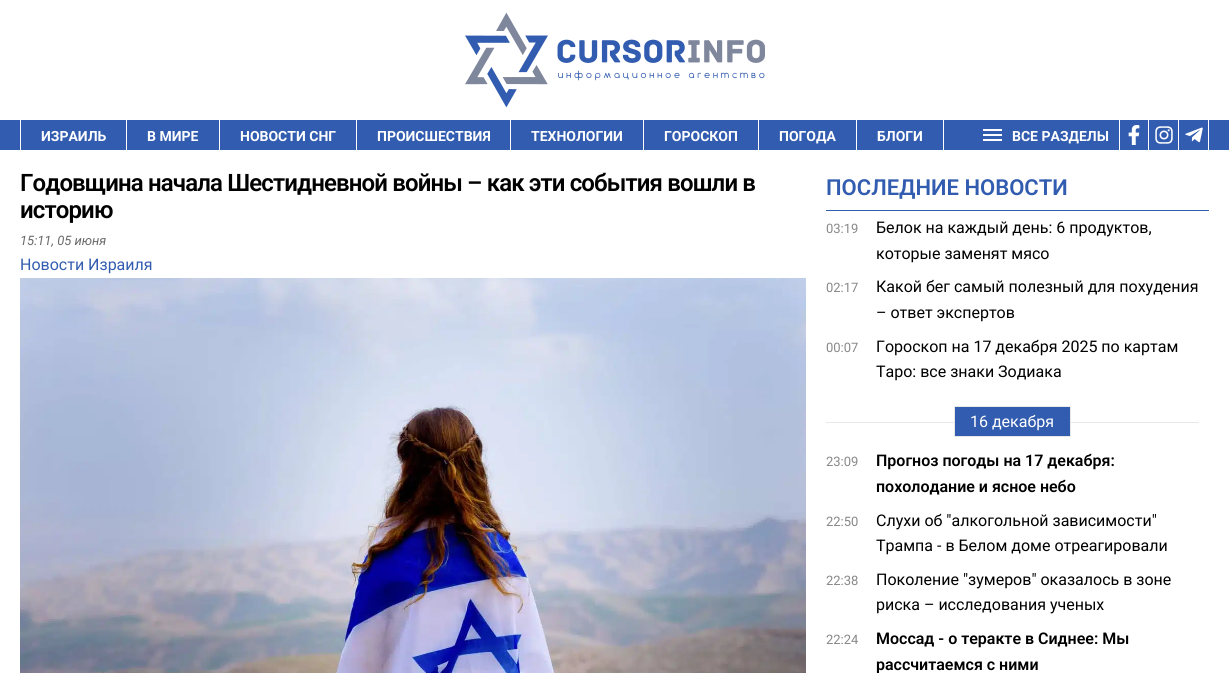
import math
import cairo

surface = cairo.ImageSurface(cairo.FORMAT_RGB24, 1229, 673)
ctx = cairo.Context(surface)
options = cairo.FontOptions()
options.set_hint_metrics(cairo.HINT_METRICS_OFF)
options.set_hint_style(cairo.HINT_STYLE_NONE)
ctx.set_font_options(options)
ctx.set_miter_limit(4)


def set_color(code):
    ctx.set_source_rgb(*(v / 255 for v in bytes.fromhex(code[-6:])))


def draw_text(x, y, s, family, size, color, bold=False, italic=False):
    ctx.select_font_face(family, cairo.FONT_SLANT_ITALIC if italic else cairo.FONT_SLANT_NORMAL, cairo.FONT_WEIGHT_BOLD if bold else cairo.FONT_WEIGHT_NORMAL)
    ctx.set_font_size(size)
    set_color(color)
    ctx.move_to(x, y)
    ctx.show_text(s)


def draw_spaced(x, y, s, letter, word):
    ctx.move_to(x, y)
    for ch in s:
        ctx.show_text(ch)
        ctx.rel_move_to(letter + word * (ch == ' '), 0)


def fill_rect(x, y, w, h, color):
    set_color(color)
    ctx.rectangle(x, y, w, h)
    ctx.fill()


def draw_image(path, x, y, w, h):
    ctx.save()
    ctx.set_source_surface(cairo.ImageSurface.create_from_png(path), x, y)
    ctx.rectangle(x, y, w, h)
    ctx.fill()
    ctx.restore()


set_color("#ffffff")
ctx.paint()
draw_image("assets/img1.png", 465, 12, 300, 96)
fill_rect(0, 120, 1229, 30, "#325caf")
fill_rect(126, 120, 1, 30, "#ffffff")
fill_rect(20, 120, 1, 30, "#ffffff")
draw_text(41, 141, "ИЗРАИЛЬ", "Roboto", 14, "#ffffff", bold=True)
fill_rect(219, 120, 1, 30, "#ffffff")
draw_text(147, 141, "В МИРЕ", "Roboto", 14, "#ffffff", bold=True)
fill_rect(356, 120, 1, 30, "#ffffff")
draw_text(240, 141, "НОВОСТИ СНГ", "Roboto", 14, "#ffffff", bold=True)
fill_rect(510, 120, 1, 30, "#ffffff")
draw_text(377, 141, "ПРОИСШЕСТВИЯ", "Roboto", 14, "#ffffff", bold=True)
fill_rect(643, 120, 1, 30, "#ffffff")
draw_text(531, 141, "ТЕХНОЛОГИИ", "Roboto", 14, "#ffffff", bold=True)
fill_rect(758, 120, 1, 30, "#ffffff")
draw_text(664, 141, "ГОРОСКОП", "Roboto", 14, "#ffffff", bold=True)
fill_rect(856, 120, 1, 30, "#ffffff")
draw_text(779, 141, "ПОГОДА", "Roboto", 14, "#ffffff", bold=True)
fill_rect(943, 120, 1, 30, "#ffffff")
draw_text(877, 141, "БЛОГИ", "Roboto", 14, "#ffffff", bold=True)
fill_rect(983, 129, 19, 2, "#ffffff")
fill_rect(983, 134, 19, 2, "#ffffff")
fill_rect(983, 139, 19, 2, "#ffffff")
draw_text(1012, 141, "ВСЕ РАЗДЕЛЫ", "Roboto", 14, "#ffffff", bold=True)
fill_rect(1148, 120, 1, 30, "#ffffff")
fill_rect(1119, 120, 1, 30, "#ffffff")
draw_image("assets/img2.png", 1128, 125, 12, 20)
fill_rect(1178, 120, 1, 30, "#ffffff")
draw_image("assets/img3.png", 1155, 126, 18, 18)
fill_rect(1208, 120, 1, 30, "#ffffff")
draw_image("assets/img4.png", 1185, 127, 18, 16)
ctx.select_font_face("Roboto SemiBold")
ctx.set_font_size(24)
set_color("#000000")
draw_spaced(20, 191, "Годовщина начала Шестидневной войны – как эти события вошли в", -0.85, 0)
draw_spaced(20, 218, "историю", -0.85, 0)
draw_text(20, 245, "15:11, 05 июня", "Roboto", 13, "#696969", italic=True)
draw_text(20, 270, "Новости Израиля", "Roboto", 16, "#325caf")
draw_image("assets/img5.png", 20, 278, 786, 395)
fill_rect(826, 210, 383, 1, "#325caf")
draw_text(826, 195, "ПОСЛЕДНИЕ НОВОСТИ", "Roboto SemiBold", 22, "#325caf")
draw_text(826, 233, "03:19", "Roboto", 13, "#888888")
draw_text(876, 233, "Белок на каждый день: 6 продуктов,", "Roboto", 16, "#000000")
draw_text(876, 259, "которые заменят мясо", "Roboto", 16, "#000000")
draw_text(826, 292, "02:17", "Roboto", 13, "#888888")
draw_text(876, 292, "Какой бег самый полезный для похудения", "Roboto", 16, "#000000")
draw_text(876, 318, "– ответ экспертов", "Roboto", 16, "#000000")
draw_text(826, 352, "00:07", "Roboto", 13, "#888888")
draw_text(876, 352, "Гороскоп на 17 декабря 2025 по картам", "Roboto", 16, "#000000")
draw_text(876, 377, "Таро: все знаки Зодиака", "Roboto", 16, "#000000")
fill_rect(826, 422, 373, 1, "#e8e8e8")
set_color("#325caf")
ctx.rectangle(954.5, 406.5, 116, 30)
ctx.fill_preserve()
set_color("#e8e8e8")
ctx.set_line_width(1)
ctx.stroke()
draw_text(970, 427, "16 декабря", "Roboto", 16, "#ffffff")
draw_text(826, 466, "23:09", "Roboto", 13, "#888888")
draw_text(876, 466, "Прогноз погоды на 17 декабря:", "Roboto SemiBold", 16, "#000000")
draw_text(876, 492, "похолодание и ясное небо", "Roboto SemiBold", 16, "#000000")
draw_text(826, 526, "22:50", "Roboto", 13, "#888888")
draw_text(876, 526, "Слухи об \"алкогольной зависимости\"", "Roboto", 16, "#000000")
draw_text(876, 551, "Трампа - в Белом доме отреагировали", "Roboto", 16, "#000000")
draw_text(826, 585, "22:38", "Roboto", 13, "#888888")
draw_text(876, 585, "Поколение \"зумеров\" оказалось в зоне", "Roboto", 16, "#000000")
draw_text(876, 610, "риска – исследования ученых", "Roboto", 16, "#000000")
draw_text(826, 644, "22:24", "Roboto", 13, "#888888")
draw_text(876, 644, "Моссад - о теракте в Сиднее: Мы", "Roboto SemiBold", 16, "#000000")
draw_text(876, 670, "рассчитаемся с ними", "Roboto SemiBold", 16, "#000000")
surface.write_to_png("output.png")
